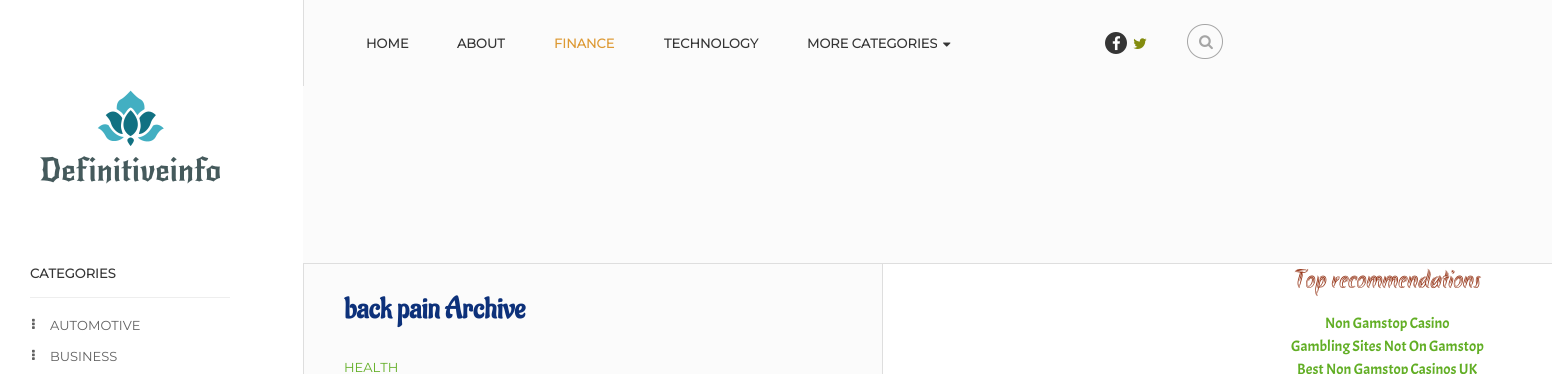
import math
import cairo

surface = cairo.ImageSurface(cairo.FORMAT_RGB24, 1552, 374)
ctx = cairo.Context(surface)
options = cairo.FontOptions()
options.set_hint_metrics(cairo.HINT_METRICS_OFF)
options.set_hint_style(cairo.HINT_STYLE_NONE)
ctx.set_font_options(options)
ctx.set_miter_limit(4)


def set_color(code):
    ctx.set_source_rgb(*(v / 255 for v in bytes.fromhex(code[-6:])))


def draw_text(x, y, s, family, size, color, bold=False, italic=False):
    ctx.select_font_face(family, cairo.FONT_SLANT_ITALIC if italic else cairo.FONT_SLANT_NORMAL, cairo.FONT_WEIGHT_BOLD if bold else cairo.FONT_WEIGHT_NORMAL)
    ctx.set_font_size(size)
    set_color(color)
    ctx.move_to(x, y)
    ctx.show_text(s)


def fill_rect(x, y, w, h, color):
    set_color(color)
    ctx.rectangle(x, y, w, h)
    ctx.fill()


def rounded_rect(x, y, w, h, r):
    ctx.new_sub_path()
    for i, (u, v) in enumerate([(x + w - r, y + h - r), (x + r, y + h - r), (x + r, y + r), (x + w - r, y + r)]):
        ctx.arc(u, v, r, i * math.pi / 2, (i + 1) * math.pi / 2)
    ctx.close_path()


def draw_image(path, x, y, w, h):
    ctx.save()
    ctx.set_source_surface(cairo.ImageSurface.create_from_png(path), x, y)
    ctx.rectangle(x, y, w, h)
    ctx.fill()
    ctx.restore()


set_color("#ffffff")
ctx.paint()
fill_rect(303, 0, 1249, 263, "#fbfbfb")
fill_rect(303, 263, 1249, 1, "#dedede")
fill_rect(303, 0, 1, 86, "#dedede")
draw_text(366, 48, "HOME", "Montserrat", 13, "#353535", bold=True)
draw_text(457, 48, "ABOUT", "Montserrat", 13, "#353535", bold=True)
draw_text(554, 48, "FINANCE", "Montserrat", 13, "#dd9933", bold=True)
draw_text(664, 48, "TECHNOLOGY", "Montserrat", 13, "#353535", bold=True)
draw_text(807, 48, "MORE CATEGORIES", "Montserrat", 13, "#353535", bold=True)
draw_image("assets/img1.png", 943, 42, 8, 5)
ctx.arc(1116, 43, 11, 0, 2 * math.pi)
ctx.fill()
draw_image("assets/img2.png", 1112, 36, 9, 15)
draw_image("assets/img3.png", 1133, 38, 14, 11)
rounded_rect(1187.5, 24.5, 35, 34, 17)
set_color("#a5a5a5")
ctx.set_line_width(1)
ctx.stroke()
draw_image("assets/img4.png", 1199, 35, 14, 15)
draw_image("assets/img5.png", 40, 90, 180, 94)
fill_rect(30, 297, 200, 1, "#eeeeee")
draw_text(30, 278, "CATEGORIES", "Montserrat", 13, "#353535", bold=True)
draw_image("assets/img6.png", 32, 318, 3, 11)
draw_text(50, 330, "AUTOMOTIVE", "Montserrat Thin", 13, "#606060")
draw_image("assets/img6.png", 32, 349, 3, 11)
draw_text(50, 361, "BUSINESS", "Montserrat Thin", 13, "#606060")
fill_rect(303, 264, 1, 110, "#dedede")
fill_rect(304, 264, 578, 110, "#fbfbfb")
fill_rect(882, 264, 1, 110, "#dedede")
draw_text(344, 318, "back pain Archive", "Aladin", 30, "#0d317a", bold=True)
draw_text(344, 372, "HEALTH", "Montserrat Thin", 13, "#61ae24")
draw_text(1294, 288, "Top recommendations", "Akronim", 26, "#963619")
draw_text(1325, 328, "Non Gamstop Casino", "Acme", 15, "#61ae24")
draw_text(1291, 351, "Gambling Sites Not On Gamstop", "Acme", 15, "#61ae24")
draw_text(1297, 374, "Best Non Gamstop Casinos UK", "Acme", 15, "#61ae24")
surface.write_to_png("output.png")
